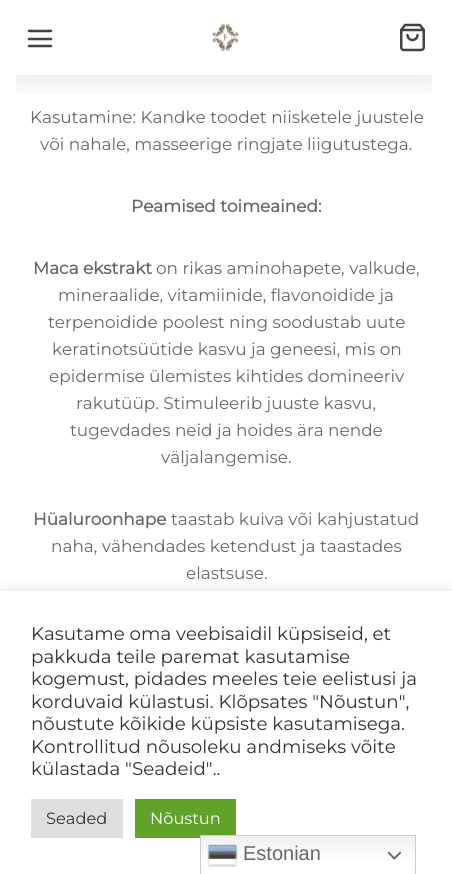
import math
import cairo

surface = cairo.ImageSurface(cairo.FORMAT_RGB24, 452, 874)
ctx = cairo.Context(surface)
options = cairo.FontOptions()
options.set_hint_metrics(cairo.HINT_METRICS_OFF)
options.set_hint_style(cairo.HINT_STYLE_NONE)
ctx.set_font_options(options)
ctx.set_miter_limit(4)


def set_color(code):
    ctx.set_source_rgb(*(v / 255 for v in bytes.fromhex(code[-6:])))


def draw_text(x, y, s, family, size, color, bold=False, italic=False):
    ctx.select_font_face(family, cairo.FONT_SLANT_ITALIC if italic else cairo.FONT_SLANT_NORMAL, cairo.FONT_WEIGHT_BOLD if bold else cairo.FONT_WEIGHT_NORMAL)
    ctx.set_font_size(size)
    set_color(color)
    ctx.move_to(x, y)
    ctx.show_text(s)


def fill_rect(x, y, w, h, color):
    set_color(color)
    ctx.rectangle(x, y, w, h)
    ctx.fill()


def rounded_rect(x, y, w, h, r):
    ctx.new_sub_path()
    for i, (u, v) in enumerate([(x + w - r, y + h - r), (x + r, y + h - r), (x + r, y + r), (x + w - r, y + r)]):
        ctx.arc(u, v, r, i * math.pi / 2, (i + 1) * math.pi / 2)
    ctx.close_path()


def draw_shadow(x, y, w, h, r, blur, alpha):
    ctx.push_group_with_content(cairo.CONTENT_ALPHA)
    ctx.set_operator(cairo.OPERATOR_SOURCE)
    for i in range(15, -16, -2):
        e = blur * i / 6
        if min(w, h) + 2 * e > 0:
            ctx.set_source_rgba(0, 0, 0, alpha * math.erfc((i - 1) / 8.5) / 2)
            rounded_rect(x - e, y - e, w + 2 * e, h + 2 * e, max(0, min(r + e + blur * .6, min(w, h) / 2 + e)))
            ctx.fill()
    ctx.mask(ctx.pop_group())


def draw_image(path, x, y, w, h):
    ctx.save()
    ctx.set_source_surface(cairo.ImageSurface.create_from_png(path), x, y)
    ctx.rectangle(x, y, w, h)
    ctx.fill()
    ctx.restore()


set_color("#ffffff")
ctx.paint()
ctx.save()
ctx.rectangle(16, 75, 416, 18)
ctx.clip()
set_color("#000000")
draw_shadow(23, 28, 402, 25, 0, 28, 0.3)
ctx.restore()
ctx.new_path()
ctx.move_to(29, 39)
ctx.line_to(51, 39)
ctx.move_to(29, 31)
ctx.line_to(51, 31)
ctx.move_to(29, 46)
ctx.line_to(51, 46)
set_color("#444444")
ctx.set_line_width(2.5)
ctx.set_line_cap(cairo.LINE_CAP_ROUND)
ctx.set_line_join(cairo.LINE_JOIN_ROUND)
ctx.stroke()
draw_image("assets/img1.png", 212, 23, 27, 28)
draw_image("assets/img2.png", 400, 23, 25, 29)
draw_text(30, 123, "Kasutamine: Kandke toodet niisketele juustele", "Montserrat Thin", 16.9, "#686868")
draw_text(40, 150, "või nahale, masseerige ringjate liigutustega.", "Montserrat Thin", 16.9, "#686868")
draw_text(131, 212, "Peamised toimeained:", "Montserrat", 16.9, "#686868", bold=True)
draw_text(33, 274, "Maca ekstrakt", "Montserrat", 16.9, "#686868", bold=True)
draw_text(156, 274, "on rikas aminohapete, valkude,", "Montserrat Thin", 16.9, "#686868")
draw_text(58, 301, "mineraalide, vitamiinide, flavonoidide ja", "Montserrat Thin", 16.9, "#686868")
draw_text(48, 328, "terpenoidide poolest ning soodustab uute", "Montserrat Thin", 16.9, "#686868")
draw_text(52, 355, "keratinotsüütide kasvu ja geneesi, mis on", "Montserrat Thin", 16.9, "#686868")
draw_text(49, 382, "epidermise ülemistes kihtides domineeriv", "Montserrat Thin", 16.9, "#686868")
draw_text(76, 409, "rakutüüp. Stimuleerib juuste kasvu,", "Montserrat Thin", 16.9, "#686868")
draw_text(70, 436, "tugevdades neid ja hoides ära nende", "Montserrat Thin", 16.9, "#686868")
draw_text(161, 463, "väljalangemise.", "Montserrat Thin", 16.9, "#686868")
draw_text(33, 525, "Hüaluroonhape", "Montserrat", 16.9, "#686868", bold=True)
draw_text(171, 525, "taastab kuiva või kahjustatud", "Montserrat Thin", 16.9, "#686868")
draw_text(51, 552, "naha, vähendades ketendust ja taastades", "Montserrat Thin", 16.9, "#686868")
draw_text(186, 579, "elastsuse.", "Montserrat Thin", 16.9, "#686868")
set_color("#acabab")
draw_shadow(0, 590, 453, 284, 0, 6, 0.3)
fill_rect(0, 591, 452, 283, "#ffffff")
draw_text(31, 640, "Kasutame oma veebisaidil küpsiseid, et", "Montserrat Thin", 18.3, "#333333")
draw_text(31, 663, "pakkuda teile paremat kasutamise", "Montserrat Thin", 18.3, "#333333")
draw_text(31, 685, "kogemust, pidades meeles teie eelistusi ja", "Montserrat Thin", 18.3, "#333333")
draw_text(31, 708, "korduvaid külastusi. Klõpsates \"Nõustun\",", "Montserrat Thin", 18.3, "#333333")
draw_text(31, 730, "nõustute kõikide küpsiste kasutamisega.", "Montserrat Thin", 18.3, "#333333")
draw_text(31, 753, "Kontrollitud nõusoleku andmiseks võite", "Montserrat Thin", 18.3, "#333333")
draw_text(31, 775, "külastada \"Seadeid\"..", "Montserrat Thin", 18.3, "#333333")
fill_rect(31, 799, 92, 39, "#dedfe0")
draw_text(46, 824, "Seaded", "Montserrat Thin", 16.25, "#333333")
fill_rect(135, 799, 101, 39, "#61a229")
draw_text(150, 824, "Nõustun", "Montserrat Thin", 16.25, "#ffffff")
gradient = cairo.LinearGradient(308, 835, 308, 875)
gradient.add_color_stop_rgba(0, 0.937, 0.937, 0.937, 1)
gradient.add_color_stop_rgba(0.7, 1, 1, 1, 1)
ctx.set_source(gradient)
ctx.rectangle(201, 836, 214, 23)
ctx.fill()
ctx.rectangle(200.5, 835.5, 215, 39)
set_color("#cccccc")
ctx.set_line_width(1)
ctx.set_line_cap(cairo.LINE_CAP_BUTT)
ctx.set_line_join(cairo.LINE_JOIN_MITER)
ctx.stroke()
draw_image("assets/img3.png", 207, 844, 31, 23)
draw_text(243, 860, "Estonian", "Liberation Sans", 20, "#686868")
draw_image("assets/img4.png", 388, 851, 13, 9)
surface.write_to_png("output.png")
